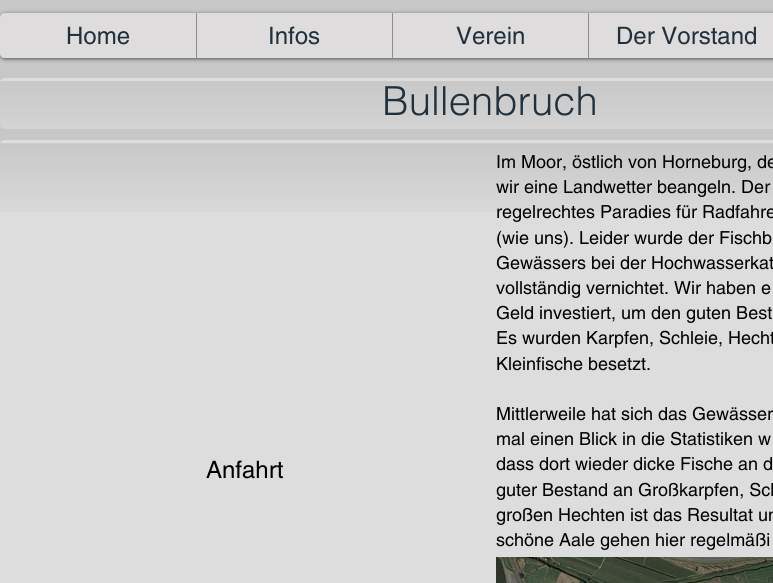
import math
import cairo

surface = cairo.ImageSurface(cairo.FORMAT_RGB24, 773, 583)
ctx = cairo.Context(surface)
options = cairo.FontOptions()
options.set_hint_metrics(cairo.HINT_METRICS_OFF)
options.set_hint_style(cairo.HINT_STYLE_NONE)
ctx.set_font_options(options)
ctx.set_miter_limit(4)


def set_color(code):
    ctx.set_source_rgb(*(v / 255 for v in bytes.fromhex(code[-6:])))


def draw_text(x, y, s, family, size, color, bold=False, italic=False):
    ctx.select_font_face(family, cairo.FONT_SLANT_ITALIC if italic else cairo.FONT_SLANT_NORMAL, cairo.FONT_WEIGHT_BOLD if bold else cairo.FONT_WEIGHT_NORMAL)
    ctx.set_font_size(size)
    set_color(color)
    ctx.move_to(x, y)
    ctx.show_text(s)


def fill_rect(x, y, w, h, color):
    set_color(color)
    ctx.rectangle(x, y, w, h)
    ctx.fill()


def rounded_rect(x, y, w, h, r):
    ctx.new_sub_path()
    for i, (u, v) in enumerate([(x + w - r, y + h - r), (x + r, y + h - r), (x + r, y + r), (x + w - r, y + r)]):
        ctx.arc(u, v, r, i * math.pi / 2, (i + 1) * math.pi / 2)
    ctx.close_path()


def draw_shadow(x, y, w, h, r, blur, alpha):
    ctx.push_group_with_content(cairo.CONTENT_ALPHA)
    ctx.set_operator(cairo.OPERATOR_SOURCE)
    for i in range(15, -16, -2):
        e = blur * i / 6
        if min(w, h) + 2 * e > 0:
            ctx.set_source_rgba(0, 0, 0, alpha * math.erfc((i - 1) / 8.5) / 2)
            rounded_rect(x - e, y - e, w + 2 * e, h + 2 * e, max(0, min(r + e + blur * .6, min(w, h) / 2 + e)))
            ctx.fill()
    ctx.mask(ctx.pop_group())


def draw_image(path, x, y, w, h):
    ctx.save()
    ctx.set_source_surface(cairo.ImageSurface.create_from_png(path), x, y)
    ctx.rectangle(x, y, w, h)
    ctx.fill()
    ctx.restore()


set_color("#c7c7c7")
ctx.paint()
ctx.save()
ctx.set_fill_rule(cairo.FILL_RULE_EVEN_ODD)
ctx.new_path()
ctx.move_to(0, 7)
ctx.line_to(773, 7)
ctx.line_to(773, 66)
ctx.line_to(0, 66)
ctx.close_path()
ctx.move_to(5, 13)
ctx.line_to(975, 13)
ctx.curve_to(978, 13, 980, 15, 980, 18)
ctx.line_to(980, 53)
ctx.curve_to(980, 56, 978, 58, 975, 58)
ctx.line_to(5, 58)
ctx.curve_to(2, 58, 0, 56, 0, 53)
ctx.line_to(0, 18)
ctx.curve_to(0, 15, 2, 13, 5, 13)
ctx.close_path()
ctx.clip()
set_color("#000000")
draw_shadow(0, 14, 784, 45, 5, 2, 0.6)
ctx.restore()
ctx.set_source_rgba(0.91, 0.902, 0.902, 0.7)
rounded_rect(0, 13, 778, 45, 5)
ctx.fill()
draw_text(66, 44, "Home", "helvetica", 24, "#20303c")
fill_rect(196, 13, 1, 45, "#908f8f")
draw_text(268, 44, "Infos", "helvetica", 24, "#20303c")
fill_rect(392, 13, 1, 45, "#908f8f")
draw_text(456, 44, "Verein", "helvetica", 24, "#20303c")
fill_rect(588, 13, 1, 45, "#908f8f")
draw_text(616, 44, "Der Vorstand", "helvetica", 24, "#20303c")
set_color("#dedddd")
rounded_rect(0, 78, 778, 51, 5)
ctx.fill()
draw_image("assets/img1.png", 0, 81, 773, 48)
draw_text(382, 115, "Bullenbruch", "helvetica Light", 40, "#20303c")
set_color("#dedddd")
rounded_rect(0, 140, 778, 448, 5)
ctx.fill()
draw_image("assets/img2.png", 0, 143, 773, 69)
draw_text(206, 478, "Anfahrt", "helvetica", 24, "#000000")
draw_text(496, 168, "Im Moor, östlich von Horneburg, de", "helvetica", 18, "#000000")
draw_text(496, 193, "wir eine Landwetter beangeln. Der", "helvetica", 18, "#000000")
draw_text(496, 218, "regelrechtes Paradies für Radfahre", "helvetica", 18, "#000000")
draw_text(496, 244, "(wie uns). Leider wurde der Fischb", "helvetica", 18, "#000000")
draw_text(496, 269, "Gewässers bei der Hochwasserkat", "helvetica", 18, "#000000")
draw_text(496, 294, "vollständig vernichtet. Wir haben e", "helvetica", 18, "#000000")
draw_text(496, 319, "Geld investiert, um den guten Best", "helvetica", 18, "#000000")
draw_text(496, 344, "Es wurden Karpfen, Schleie, Hecht", "helvetica", 18, "#000000")
draw_text(496, 370, "Kleinfische besetzt.", "helvetica", 18, "#000000")
draw_text(496, 420, "Mittlerweile hat sich das Gewässer", "helvetica", 18, "#000000")
draw_text(496, 445, "mal einen Blick in die Statistiken w", "helvetica", 18, "#000000")
draw_text(496, 470, "dass dort wieder dicke Fische an d", "helvetica", 18, "#000000")
draw_text(496, 496, "guter Bestand an Großkarpfen, Sch", "helvetica", 18, "#000000")
draw_text(496, 521, "großen Hechten ist das Resultat un", "helvetica", 18, "#000000")
draw_text(496, 546, "schöne Aale gehen hier regelmäßi", "helvetica", 18, "#000000")
draw_image("assets/img3.png", 496, 557, 277, 26)
surface.write_to_png("output.png")
